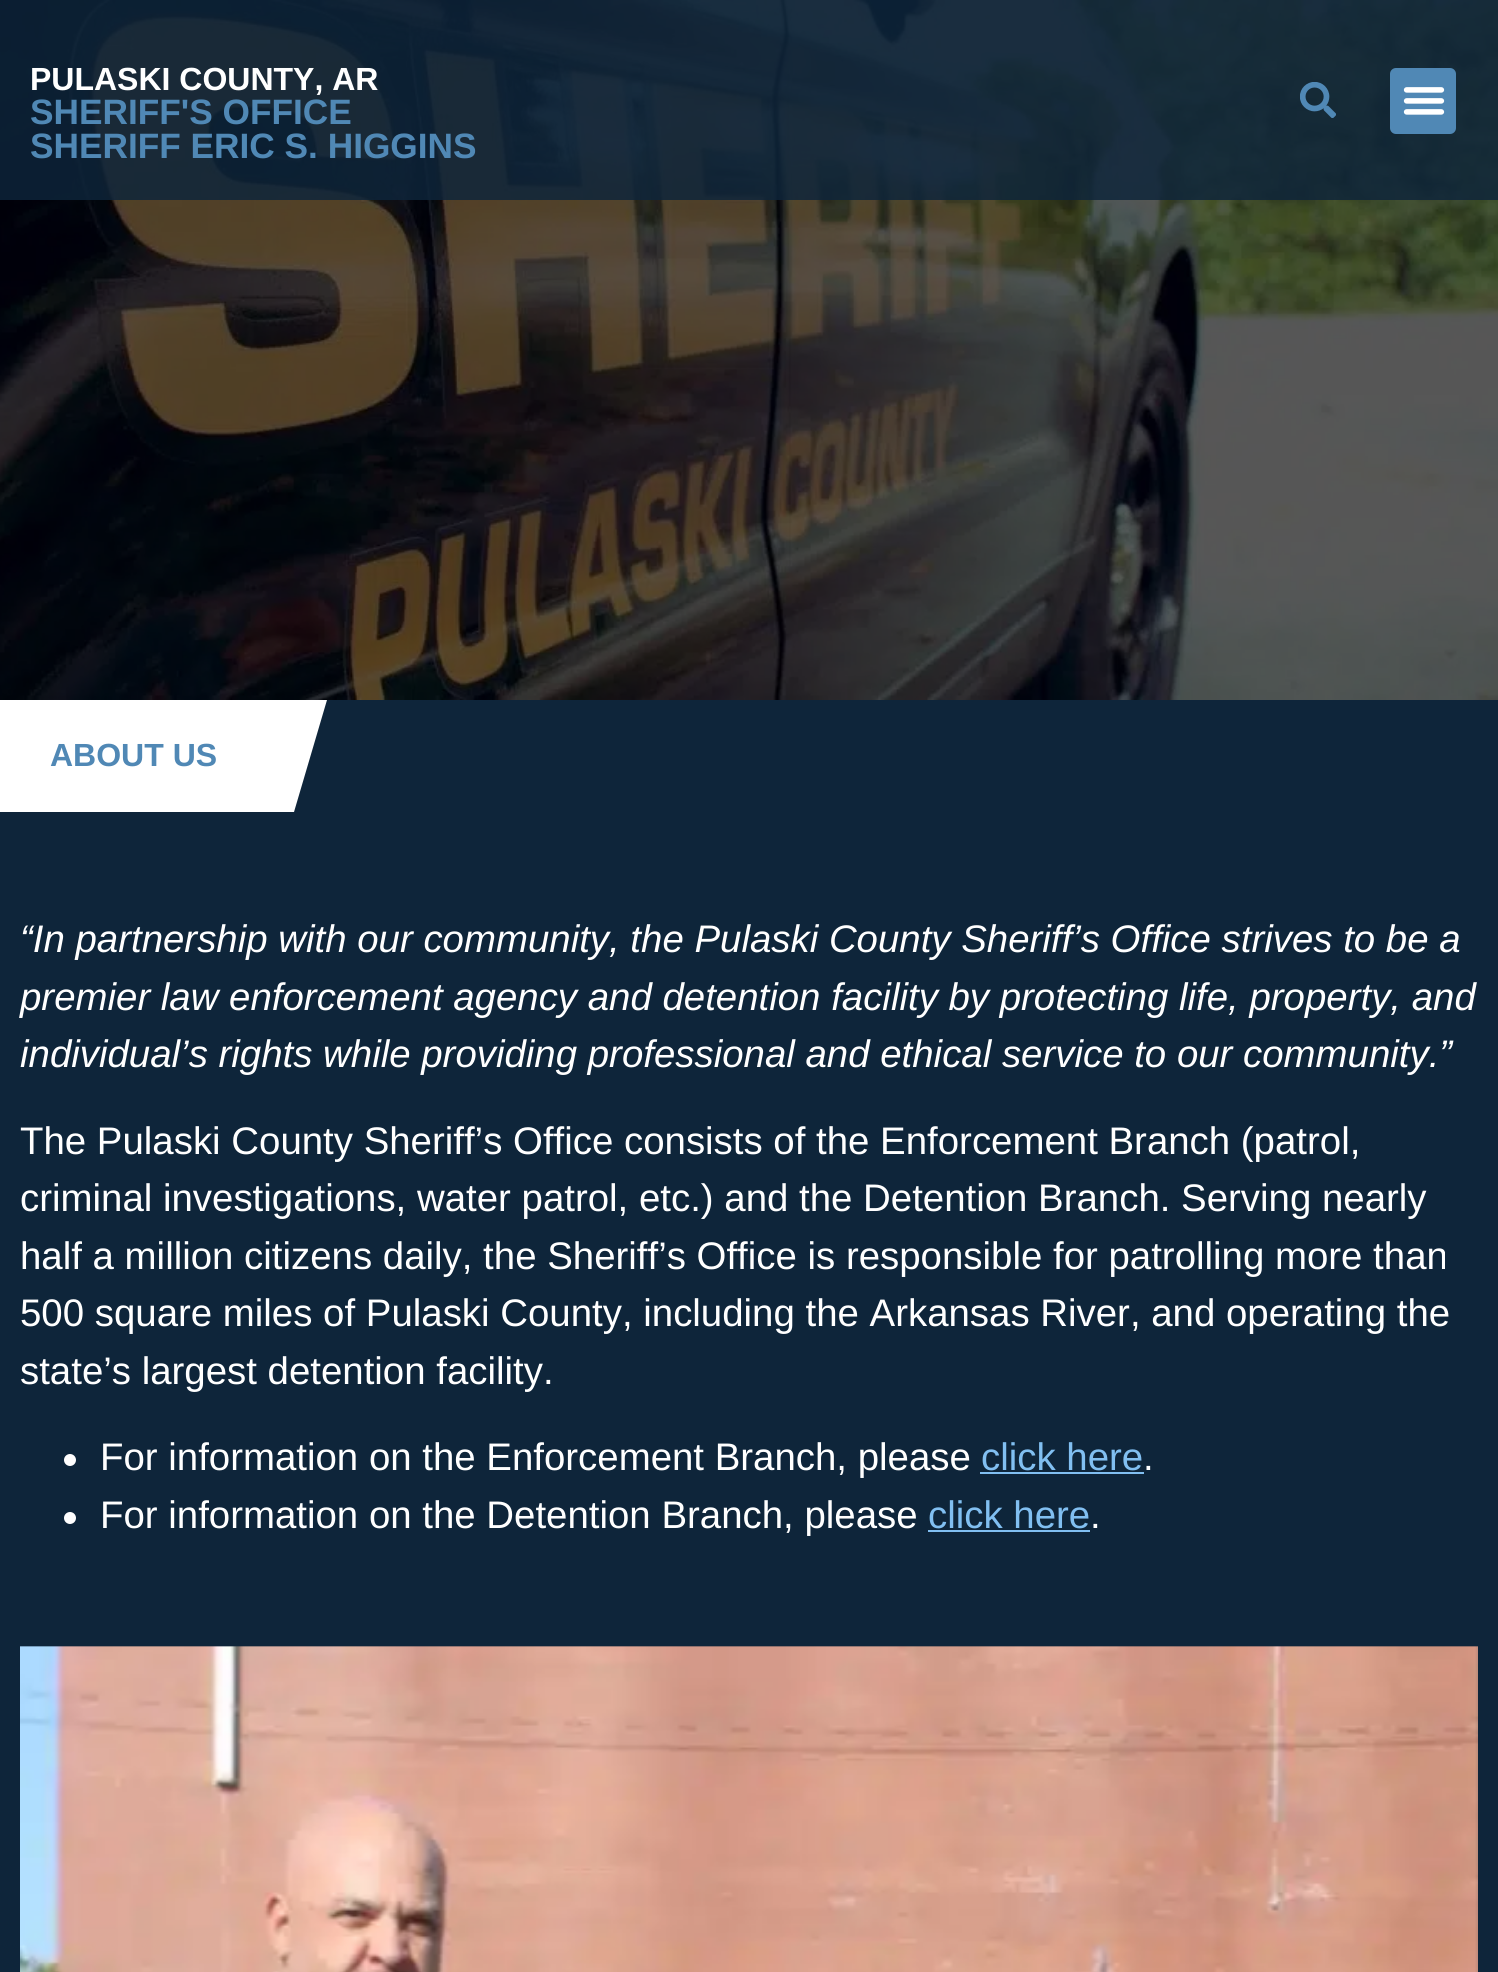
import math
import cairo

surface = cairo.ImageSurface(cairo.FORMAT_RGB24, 1498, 1972)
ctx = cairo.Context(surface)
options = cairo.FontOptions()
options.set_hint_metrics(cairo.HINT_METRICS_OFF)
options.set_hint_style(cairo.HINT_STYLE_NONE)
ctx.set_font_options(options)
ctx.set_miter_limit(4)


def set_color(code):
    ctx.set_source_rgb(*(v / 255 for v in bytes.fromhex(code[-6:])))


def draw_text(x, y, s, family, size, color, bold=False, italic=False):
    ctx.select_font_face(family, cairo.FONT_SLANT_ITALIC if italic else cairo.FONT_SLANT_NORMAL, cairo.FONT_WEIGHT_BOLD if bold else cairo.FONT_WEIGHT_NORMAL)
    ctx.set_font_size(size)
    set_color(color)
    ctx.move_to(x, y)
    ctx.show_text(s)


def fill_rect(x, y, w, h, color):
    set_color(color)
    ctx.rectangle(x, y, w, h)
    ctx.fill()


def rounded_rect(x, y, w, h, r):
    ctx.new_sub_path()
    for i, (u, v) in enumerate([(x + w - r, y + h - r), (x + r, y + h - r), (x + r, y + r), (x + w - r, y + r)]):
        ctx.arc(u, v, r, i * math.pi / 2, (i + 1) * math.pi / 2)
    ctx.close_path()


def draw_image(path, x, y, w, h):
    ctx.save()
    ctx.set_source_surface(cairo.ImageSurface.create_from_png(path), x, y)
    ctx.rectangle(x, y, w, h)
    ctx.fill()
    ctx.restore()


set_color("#ffffff")
ctx.paint()
draw_image("assets/img3.png", 0, 0, 1498, 700)
ctx.set_source_rgba(0.055, 0.145, 0.227, 0.83)
ctx.rectangle(0, 0, 1498, 200)
ctx.fill()
draw_text(30, 90, "PULASKI COUNTY, AR", "Liberation Sans", 32, "#ffffff", bold=True)
draw_text(30, 124, "SHERIFF'S OFFICE", "Liberation Sans", 35.25, "#5088b5", bold=True)
draw_text(30, 158, "SHERIFF ERIC S. HIGGINS", "Liberation Sans", 35.25, "#5088b5", bold=True)
draw_image("assets/img1.png", 1300, 82, 36, 36)
rounded_rect(1390, 68, 66, 66, 6)
ctx.fill()
draw_image("assets/img2.png", 1403, 87, 42, 28)
fill_rect(0, 700, 1498, 1272, "#0e253a")
set_color("#ffffff")
ctx.new_path()
ctx.move_to(0, 700)
ctx.line_to(0, 812)
ctx.line_to(294, 812)
ctx.line_to(327, 700)
ctx.close_path()
ctx.fill()
draw_text(50, 766, "ABOUT US", "Liberation Sans", 32, "#5088b5", bold=True)
draw_text(20, 952, "“In partnership with our community, the Pulaski County Sheriff’s Office strives to be a", "Liberation Sans", 38.4, "#ffffff", italic=True)
draw_text(20, 1010, "premier law enforcement agency and detention facility by protecting life, property, and", "Liberation Sans", 38.4, "#ffffff", italic=True)
draw_text(20, 1067, "individual’s rights while providing professional and ethical service to our community.”", "Liberation Sans", 38.4, "#ffffff", italic=True)
draw_text(20, 1154, "The Pulaski County Sheriff’s Office consists of the Enforcement Branch (patrol,", "Liberation Sans", 38.4, "#ffffff")
draw_text(20, 1211, "criminal investigations, water patrol, etc.) and the Detention Branch. Serving nearly", "Liberation Sans", 38.4, "#ffffff")
draw_text(20, 1269, "half a million citizens daily, the Sheriff’s Office is responsible for patrolling more than", "Liberation Sans", 38.4, "#ffffff")
draw_text(20, 1326, "500 square miles of Pulaski County, including the Arkansas River, and operating the", "Liberation Sans", 38.4, "#ffffff")
draw_text(20, 1384, "state’s largest detention facility.", "Liberation Sans", 38.4, "#ffffff")
ctx.new_path()
ctx.arc(70, 1460, 6, 0, 2 * math.pi)
ctx.fill()
draw_text(100, 1470, "For information on the Enforcement Branch, please", "Liberation Sans", 38.4, "#ffffff")
draw_text(981, 1470, "click here", "Liberation Sans", 38.4, "#81bff1")
fill_rect(980, 1472, 164, 2, "#81bff1")
draw_text(1143, 1470, ".", "Liberation Sans", 38.4, "#ffffff")
ctx.new_path()
ctx.arc(70, 1518, 6, 0, 2 * math.pi)
ctx.fill()
draw_text(100, 1528, "For information on the Detention Branch, please", "Liberation Sans", 38.4, "#ffffff")
draw_text(928, 1528, "click here", "Liberation Sans", 38.4, "#81bff1")
fill_rect(928, 1530, 162, 2, "#81bff1")
draw_text(1090, 1528, ".", "Liberation Sans", 38.4, "#ffffff")
draw_image("assets/img4.png", 20, 1646, 1458, 326)
surface.write_to_png("output.png")
